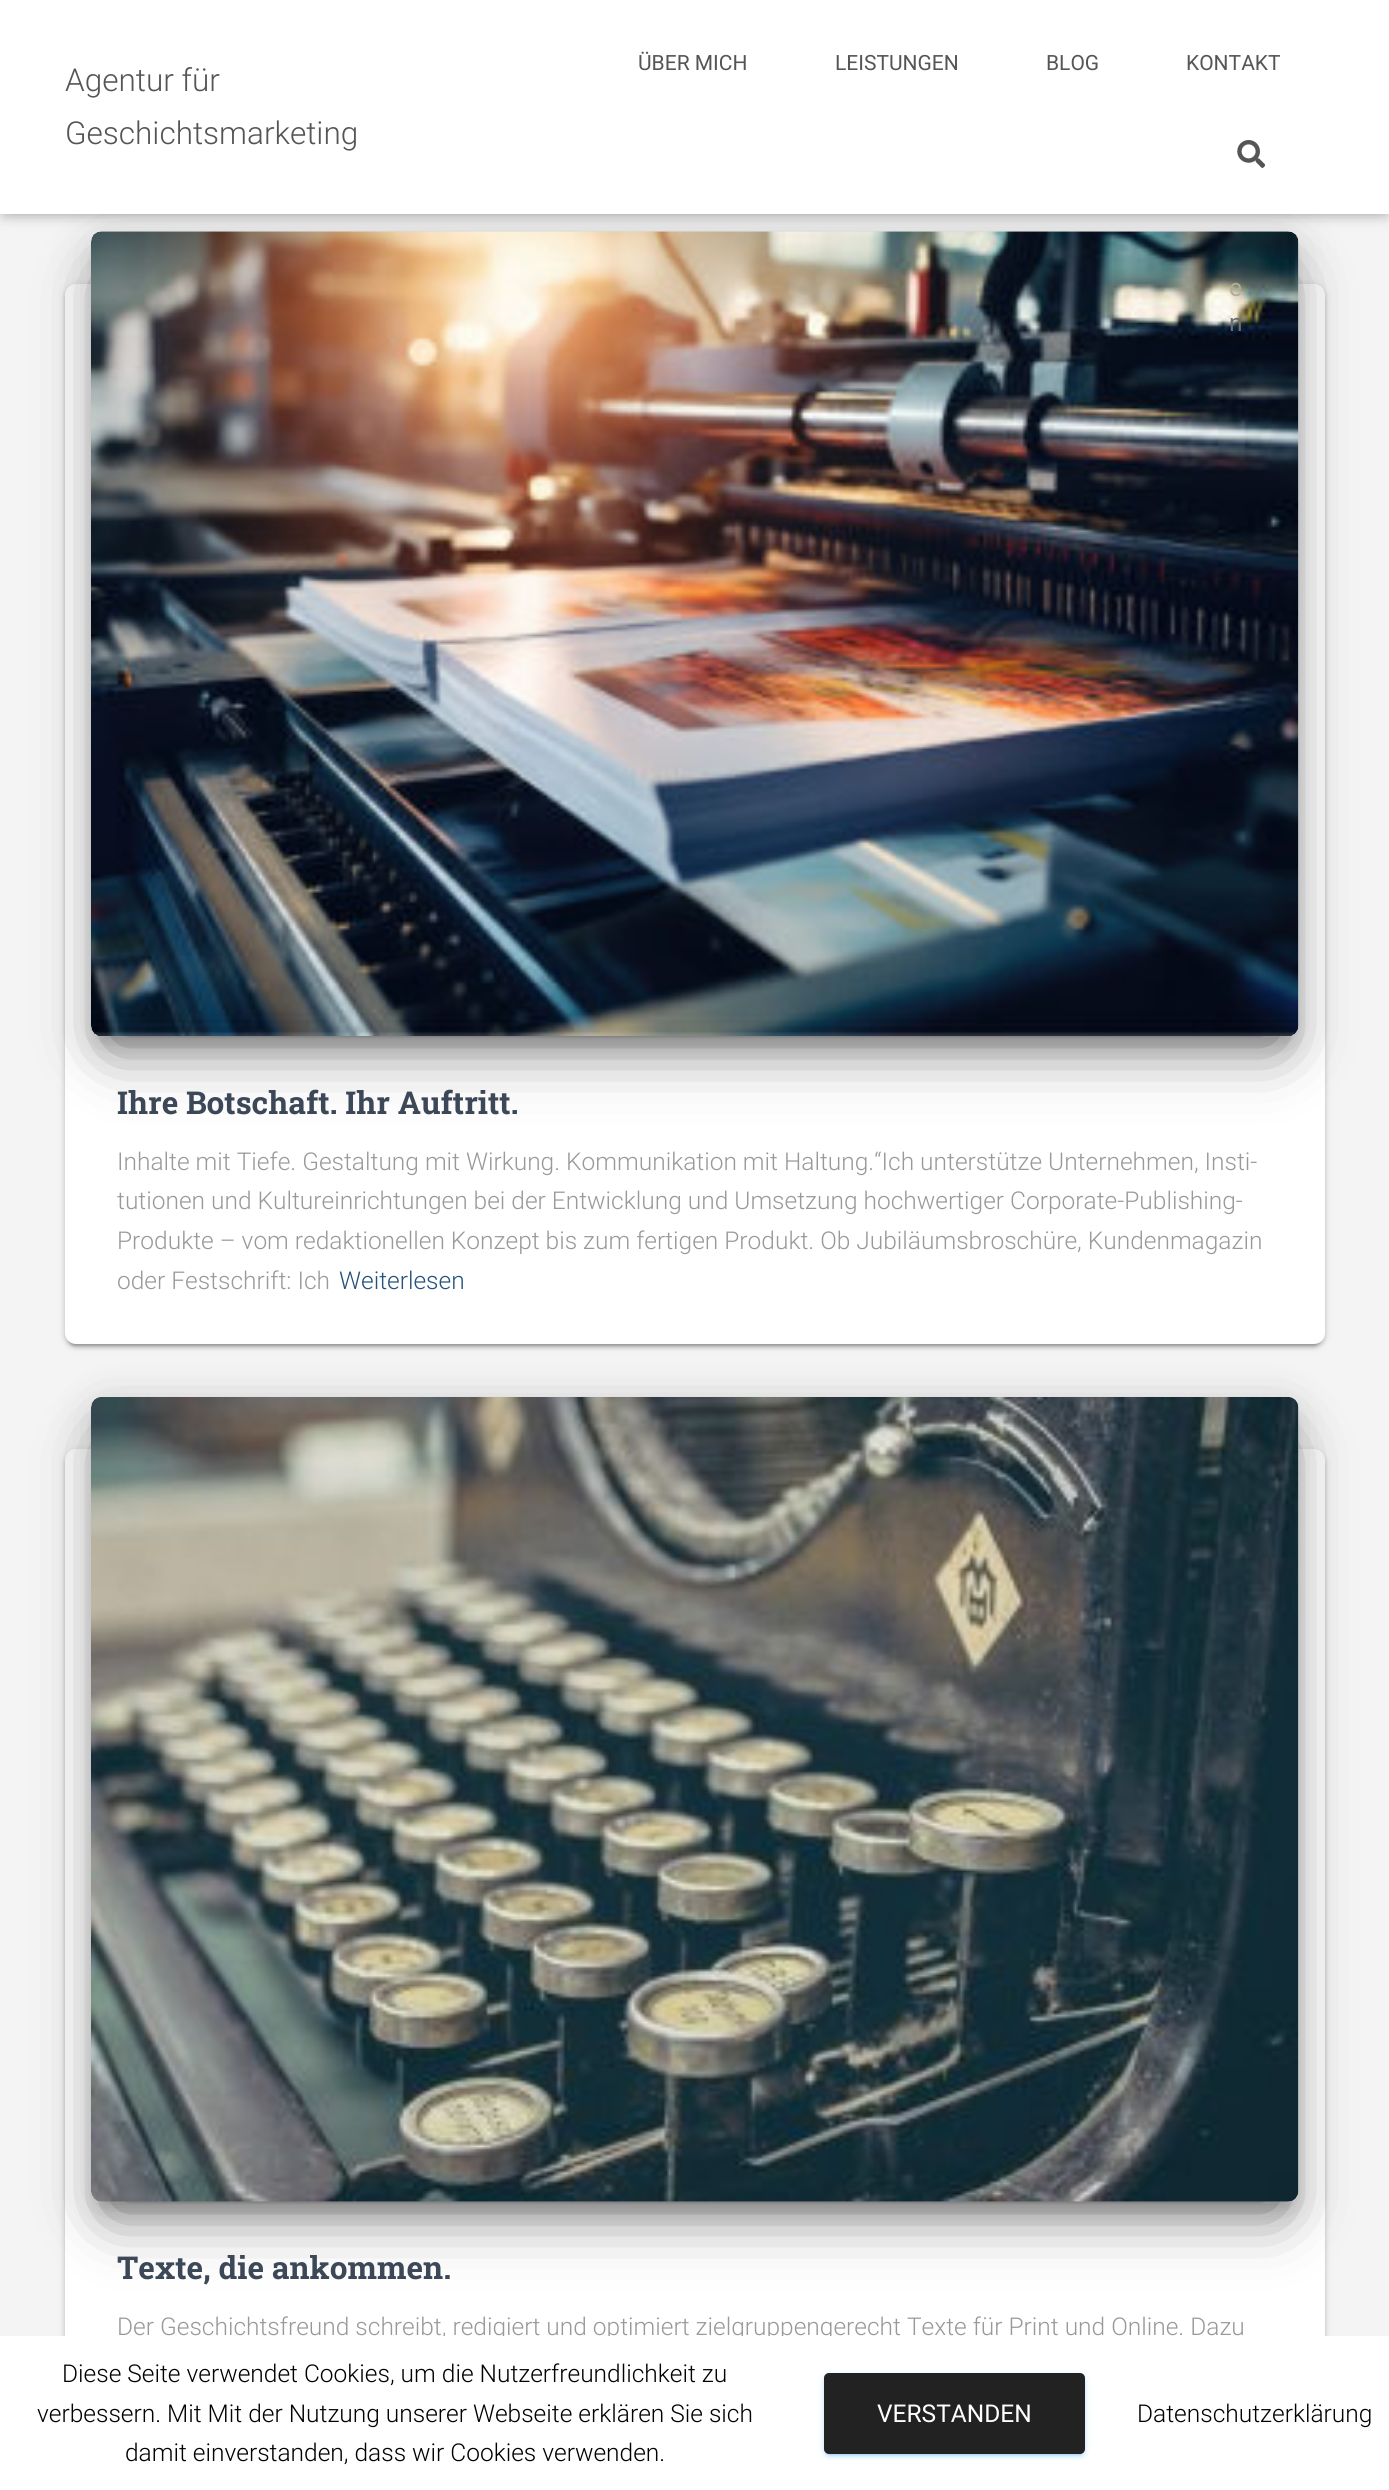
import math
import cairo

surface = cairo.ImageSurface(cairo.FORMAT_RGB24, 1389, 2490)
ctx = cairo.Context(surface)
options = cairo.FontOptions()
options.set_hint_metrics(cairo.HINT_METRICS_OFF)
options.set_hint_style(cairo.HINT_STYLE_NONE)
ctx.set_font_options(options)
ctx.set_miter_limit(4)


def set_color(code):
    ctx.set_source_rgb(*(v / 255 for v in bytes.fromhex(code[-6:])))


def draw_text(x, y, s, family, size, color, bold=False, italic=False):
    ctx.select_font_face(family, cairo.FONT_SLANT_ITALIC if italic else cairo.FONT_SLANT_NORMAL, cairo.FONT_WEIGHT_BOLD if bold else cairo.FONT_WEIGHT_NORMAL)
    ctx.set_font_size(size)
    set_color(color)
    ctx.move_to(x, y)
    ctx.show_text(s)


def fill_rect(x, y, w, h, color):
    set_color(color)
    ctx.rectangle(x, y, w, h)
    ctx.fill()


def rounded_rect(x, y, w, h, r):
    ctx.new_sub_path()
    for i, (u, v) in enumerate([(x + w - r, y + h - r), (x + r, y + h - r), (x + r, y + r), (x + w - r, y + r)]):
        ctx.arc(u, v, r, i * math.pi / 2, (i + 1) * math.pi / 2)
    ctx.close_path()


def draw_shadow(x, y, w, h, r, blur, alpha):
    ctx.push_group_with_content(cairo.CONTENT_ALPHA)
    ctx.set_operator(cairo.OPERATOR_SOURCE)
    for i in range(15, -16, -2):
        e = blur * i / 6
        if min(w, h) + 2 * e > 0:
            ctx.set_source_rgba(0, 0, 0, alpha * math.erfc((i - 1) / 8.5) / 2)
            rounded_rect(x - e, y - e, w + 2 * e, h + 2 * e, max(0, min(r + e + blur * .6, min(w, h) / 2 + e)))
            ctx.fill()
    ctx.mask(ctx.pop_group())


def draw_image(path, x, y, w, h):
    ctx.save()
    ctx.set_source_surface(cairo.ImageSurface.create_from_png(path), x, y)
    ctx.rectangle(x, y, w, h)
    ctx.fill()
    ctx.restore()


set_color("#f4f4f4")
ctx.paint()
set_color("#000000")
draw_shadow(65, 285, 1260, 1061, 11, 4.5, 0.12)
draw_shadow(68, 292, 1253, 1054, 7, 1, 0.2)
draw_shadow(65, 287, 1260, 1061, 11, 2, 0.14)
set_color("#ffffff")
rounded_rect(65, 284, 1260, 1060, 11)
ctx.fill()
set_color("#000000")
draw_shadow(100, 254, 1190, 787, 2, 9, 0.2)
draw_shadow(91, 238, 1208, 805, 11, 22, 0.12)
draw_shadow(112, 280, 1166, 763, 0, 33, 0.56)
draw_image("assets/img2.png", 91, 231, 1208, 805)
draw_shadow(4, 11, 1382, 206, 0, 4.5, 0.1)
draw_shadow(0, 2, 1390, 213, 0, 9, 0.12)
draw_shadow(11, 12, 1368, 193, 0, 9, 0.42)
fill_rect(0, 0, 1389, 214, "#ffffff")
draw_text(65, 91, "Agentur für", "Roboto Light", 31.5, "#555555")
draw_text(65, 144, "Geschichtsmarketing", "Roboto Light", 31.5, "#555555")
draw_text(638, 70, "ÜBER MICH", "Roboto", 21, "#555555")
draw_text(835, 70, "LEISTUNGEN", "Roboto", 21, "#555555")
draw_text(1046, 70, "BLOG", "Roboto", 21, "#555555")
draw_text(1186, 70, "KONTAKT", "Roboto", 21, "#555555")
draw_image("assets/img1.png", 1237, 140, 28, 28)
draw_text(1229, 296, "e", "Roboto", 24.5, "#afae99")
draw_text(1229, 331, "n", "Roboto", 24.5, "#6a7071")
draw_text(117, 1114, "Ihre Botschaft. Ihr Auftritt.", "Roboto Slab", 31.5, "#3c4858", bold=True)
draw_text(117, 1170, "Inhalte mit Tiefe. Gestaltung mit Wirkung. Kommunikation mit Haltung.“Ich unterstütze Unternehmen, Insti-", "Roboto Light", 24.5, "#999999")
draw_text(117, 1209, "tutionen und Kultureinrichtungen bei der Entwicklung und Umsetzung hochwertiger Corporate-Publishing-", "Roboto Light", 24.5, "#999999")
draw_text(117, 1249, "Produkte – vom redaktionellen Konzept bis zum fertigen Produkt. Ob Jubiläumsbroschüre, Kundenmagazin", "Roboto Light", 24.5, "#999999")
draw_text(117, 1289, "oder Festschrift: Ich", "Roboto Light", 24.5, "#999999")
draw_text(339, 1289, "Weiterlesen", "Roboto Light", 24.5, "#23527c")
set_color("#000000")
draw_shadow(65, 1451, 1260, 1020, 11, 4.5, 0.12)
draw_shadow(65, 1453, 1260, 1020, 11, 2, 0.14)
set_color("#ffffff")
rounded_rect(65, 1449, 1260, 1020, 11)
ctx.fill()
set_color("#000000")
draw_shadow(100, 1419, 1190, 788, 2, 9, 0.2)
draw_shadow(91, 1404, 1208, 805, 11, 22, 0.12)
draw_shadow(112, 1446, 1166, 763, 0, 33, 0.56)
draw_image("assets/img3.png", 91, 1397, 1208, 805)
draw_text(117, 2279, "Texte, die ankommen.", "Roboto Slab", 31.5, "#3c4858", bold=True)
draw_text(117, 2335, "Der Geschichtsfreund schreibt, redigiert und optimiert zielgruppengerecht Texte für Print und Online. Dazu", "Roboto Light", 24.5, "#999999")
fill_rect(0, 2336, 1389, 154, "#ffffff")
draw_text(62, 2382, "Diese Seite verwendet Cookies, um die Nutzerfreundlichkeit zu", "Roboto Light", 24.5, "#000000")
draw_text(37, 2422, "verbessern. Mit Mit der Nutzung unserer Webseite erklären Sie sich", "Roboto Light", 24.5, "#000000")
draw_text(125, 2461, "damit einverstanden, dass wir Cookies verwenden.", "Roboto Light", 24.5, "#000000")
set_color("#0080ff")
draw_shadow(824, 2375, 261, 80, 5, 4.5, 0.12)
draw_shadow(828, 2382, 254, 73, 2, 1, 0.2)
draw_shadow(824, 2377, 261, 80, 5, 2, 0.14)
set_color("#222222")
rounded_rect(824, 2373, 261, 81, 5)
ctx.fill()
draw_text(877, 2422, "VERSTANDEN", "Roboto", 24.5, "#ffffff")
draw_text(1137, 2422, "Datenschutzerklärung", "Roboto Light", 24.5, "#000000")
surface.write_to_png("output.png")
